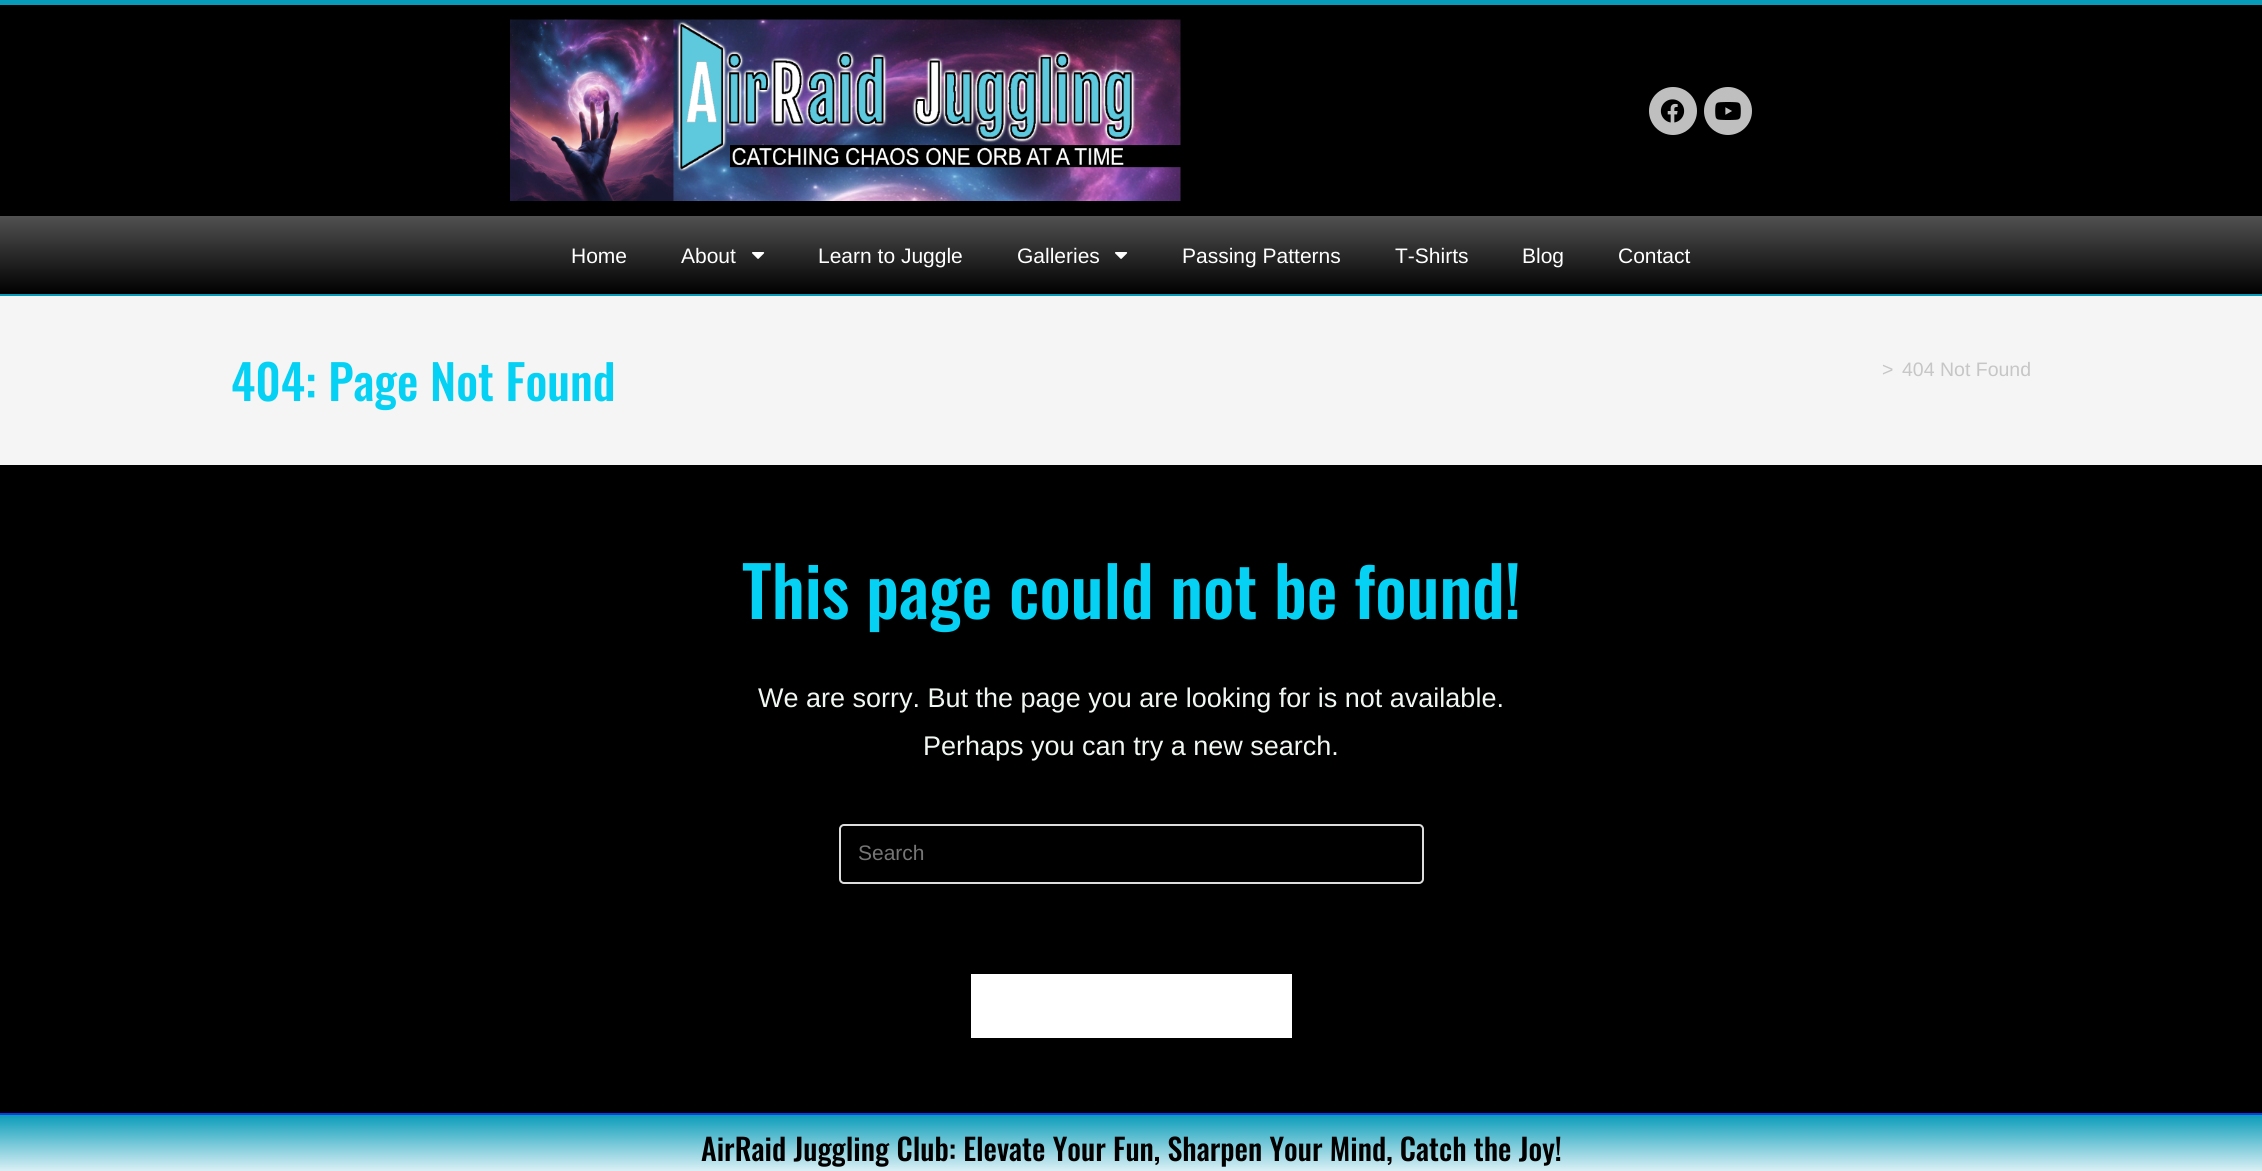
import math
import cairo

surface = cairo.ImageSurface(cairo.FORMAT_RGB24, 2262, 1171)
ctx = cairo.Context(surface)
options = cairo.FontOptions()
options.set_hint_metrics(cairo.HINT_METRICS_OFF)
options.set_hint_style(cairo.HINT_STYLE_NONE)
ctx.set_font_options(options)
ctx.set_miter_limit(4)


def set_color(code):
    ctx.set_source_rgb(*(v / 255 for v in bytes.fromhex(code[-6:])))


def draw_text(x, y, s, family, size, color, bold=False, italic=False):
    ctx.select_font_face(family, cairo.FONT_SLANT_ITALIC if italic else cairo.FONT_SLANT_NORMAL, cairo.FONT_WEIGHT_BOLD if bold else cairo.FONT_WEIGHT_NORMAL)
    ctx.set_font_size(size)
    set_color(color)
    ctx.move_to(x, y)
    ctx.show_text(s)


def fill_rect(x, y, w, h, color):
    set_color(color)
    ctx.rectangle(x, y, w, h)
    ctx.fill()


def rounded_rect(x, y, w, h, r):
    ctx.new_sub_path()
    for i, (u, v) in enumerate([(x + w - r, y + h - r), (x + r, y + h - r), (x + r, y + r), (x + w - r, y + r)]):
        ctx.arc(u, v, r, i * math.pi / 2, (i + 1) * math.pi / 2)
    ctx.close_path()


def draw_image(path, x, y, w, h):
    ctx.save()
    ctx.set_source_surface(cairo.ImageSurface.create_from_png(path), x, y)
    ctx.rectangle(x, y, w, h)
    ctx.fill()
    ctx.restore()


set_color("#000000")
ctx.paint()
fill_rect(0, 0, 2262, 5, "#079bb9")
draw_image("assets/img1.png", 510, 19, 671, 182)
set_color("#bfbfbf")
ctx.arc(1673, 111, 24, 0, 2 * math.pi)
ctx.fill()
draw_image("assets/img2.png", 1660, 99, 25, 24)
ctx.arc(1728, 111, 24, 0, 2 * math.pi)
ctx.fill()
draw_image("assets/img3.png", 1715, 102, 26, 18)
gradient = cairo.LinearGradient(1131, 216, 1131, 294)
gradient.add_color_stop_rgba(0, 0.318, 0.318, 0.318, 1)
gradient.add_color_stop_rgba(1, 0, 0, 0, 1)
ctx.set_source(gradient)
ctx.rectangle(0, 216, 2262, 76)
ctx.fill()
fill_rect(0, 294, 2262, 2, "#079bb9")
draw_text(571, 263, "Home", "Liberation Sans", 21, "#ffffff")
draw_text(681, 263, "About", "Liberation Sans", 21, "#ffffff")
draw_image("assets/img4.png", 752, 252, 13, 7)
draw_text(818, 263, "Learn to Juggle", "Liberation Sans", 21, "#ffffff")
draw_text(1017, 263, "Galleries", "Liberation Sans", 21, "#ffffff")
draw_image("assets/img4.png", 1115, 252, 13, 7)
draw_text(1182, 263, "Passing Patterns", "Liberation Sans", 21, "#ffffff")
draw_text(1395, 263, "T-Shirts", "Liberation Sans", 21, "#ffffff")
draw_text(1522, 263, "Blog", "Liberation Sans", 21, "#ffffff")
draw_text(1618, 263, "Contact", "Liberation Sans", 21, "#ffffff")
fill_rect(0, 296, 2262, 169, "#f5f5f5")
draw_text(231, 401, "404: Page Not Found", "Oswald Medium", 48, "#04d1f3")
draw_text(1882, 376, ">", "Liberation Sans", 19.5, "#c6c6c6")
draw_text(1902, 376, "404 Not Found", "Liberation Sans", 19.5, "#c6c6c6")
draw_text(742, 619, "This page could not be found!", "Oswald Medium", 69, "#04d1f3")
draw_text(758, 707, "We are sorry. But the page you are looking for is not available.", "Liberation Sans", 27, "#f1f7f2")
draw_text(923, 755, "Perhaps you can try a new search.", "Liberation Sans", 27, "#f1f7f2")
rounded_rect(840, 825, 583, 58, 4)
set_color("#dddddd")
ctx.stroke()
draw_text(858, 860, "Search", "Liberation Sans", 21, "#757575")
fill_rect(971, 974, 321, 64, "#ffffff")
gradient = cairo.LinearGradient(1131, 1114, 1131, 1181)
gradient.add_color_stop_rgba(0, 0.027, 0.608, 0.725, 1)
gradient.add_color_stop_rgba(1, 1, 1, 1, 1)
ctx.set_source(gradient)
ctx.rectangle(0, 1115, 2262, 56)
ctx.fill()
fill_rect(0, 1113, 2262, 2, "#0a3eec")
draw_text(701, 1161, "AirRaid Juggling Club: Elevate Your Fun, Sharpen Your Mind, Catch the Joy!", "Oswald Medium", 30, "#000000")
surface.write_to_png("output.png")
